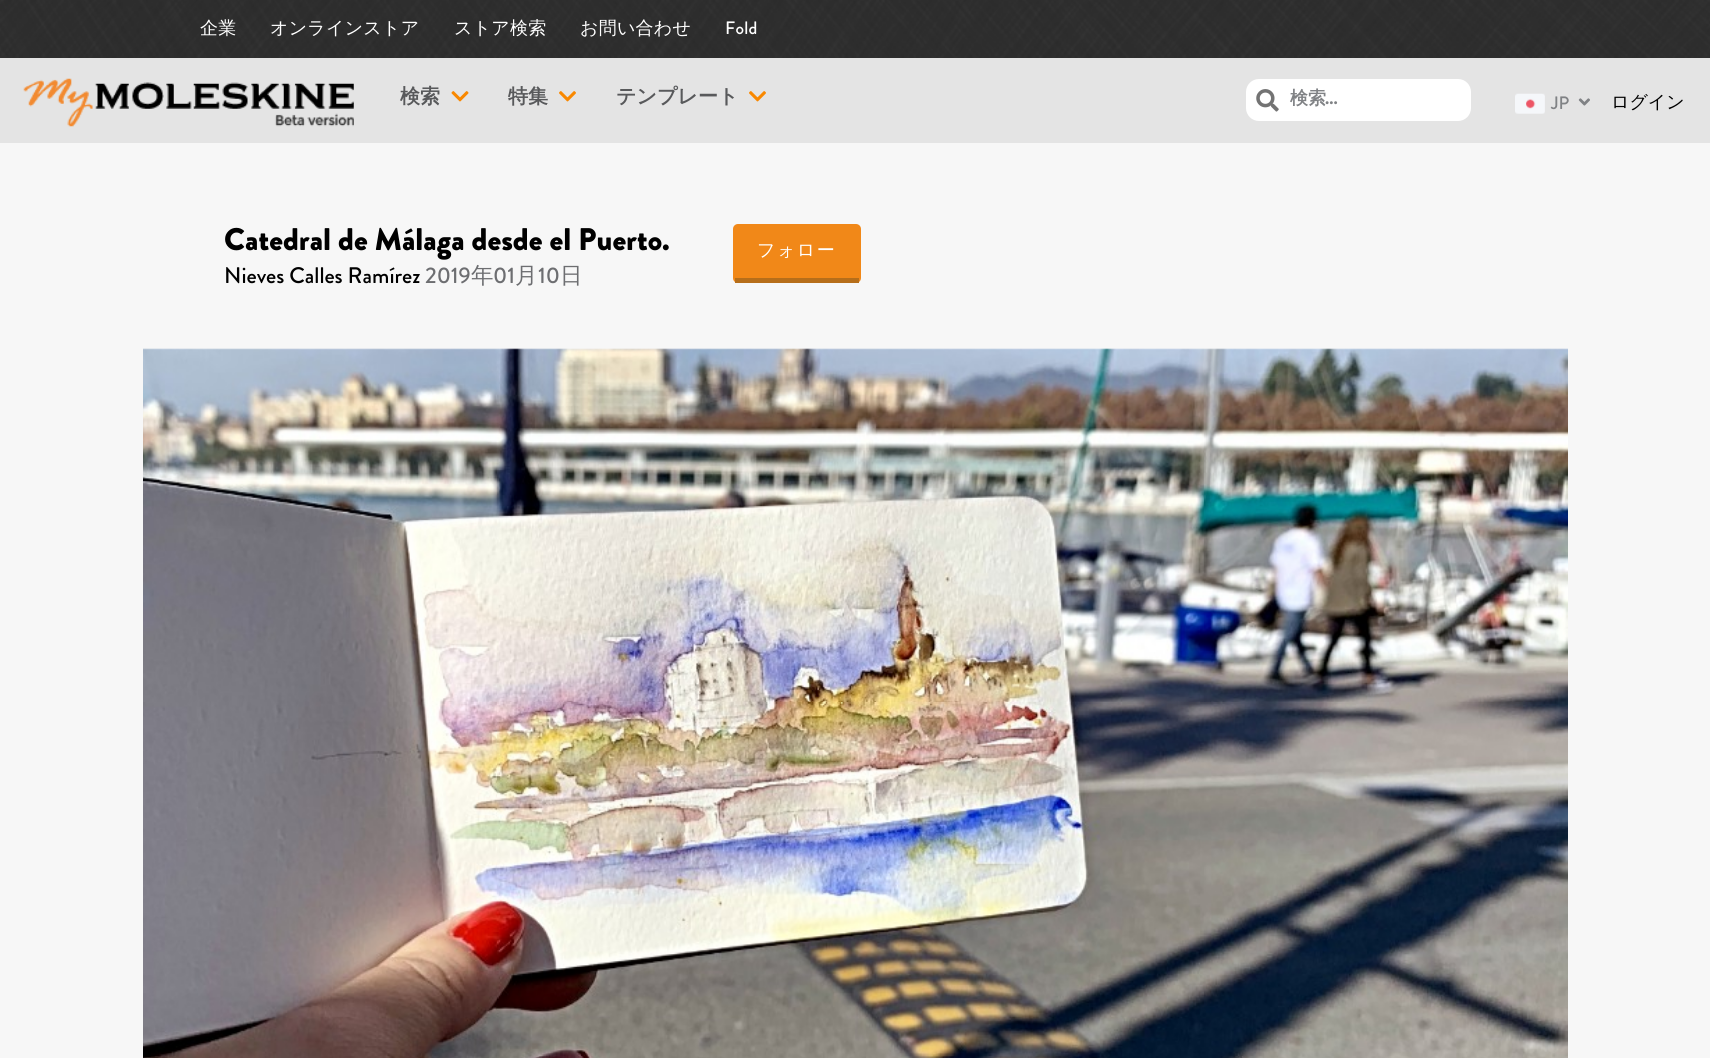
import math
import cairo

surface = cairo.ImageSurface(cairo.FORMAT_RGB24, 1710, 1058)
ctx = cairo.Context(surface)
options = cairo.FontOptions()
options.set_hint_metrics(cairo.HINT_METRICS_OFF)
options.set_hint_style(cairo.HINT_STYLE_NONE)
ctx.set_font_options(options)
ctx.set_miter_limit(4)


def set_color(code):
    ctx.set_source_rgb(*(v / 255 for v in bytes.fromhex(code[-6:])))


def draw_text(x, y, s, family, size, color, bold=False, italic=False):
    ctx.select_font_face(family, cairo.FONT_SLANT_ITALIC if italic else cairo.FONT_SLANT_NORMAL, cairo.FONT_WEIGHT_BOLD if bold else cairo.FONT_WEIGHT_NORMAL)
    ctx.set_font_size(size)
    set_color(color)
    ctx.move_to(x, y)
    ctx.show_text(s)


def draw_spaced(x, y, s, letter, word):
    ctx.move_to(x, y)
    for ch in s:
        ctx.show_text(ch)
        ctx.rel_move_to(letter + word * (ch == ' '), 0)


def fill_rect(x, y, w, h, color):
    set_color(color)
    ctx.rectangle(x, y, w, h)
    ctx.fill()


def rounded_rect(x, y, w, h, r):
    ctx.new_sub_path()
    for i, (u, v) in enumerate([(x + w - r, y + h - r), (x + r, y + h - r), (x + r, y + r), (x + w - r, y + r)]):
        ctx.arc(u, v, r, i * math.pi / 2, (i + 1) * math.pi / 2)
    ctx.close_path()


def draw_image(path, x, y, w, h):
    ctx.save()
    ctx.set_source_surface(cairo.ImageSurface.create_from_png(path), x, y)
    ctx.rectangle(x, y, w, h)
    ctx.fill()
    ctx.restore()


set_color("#f7f7f7")
ctx.paint()
fill_rect(0, 58, 1710, 85, "#e4e4e4")
draw_image("assets/img1.png", 0, 0, 1710, 58)
ctx.select_font_face("WenQuanYi Zen Hei Medium")
ctx.set_font_size(18)
set_color("#ffffff")
draw_spaced(200, 34, "企業", 0.25, 0)
draw_spaced(270, 34, "オンラインストア", 0.25, 0)
draw_spaced(454, 34, "ストア検索", 0.25, 0)
draw_spaced(580, 34, "お問い合わせ", 0.25, 0)
ctx.select_font_face("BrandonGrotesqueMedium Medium")
draw_spaced(725, 34, "Fold", 0.25, 0)
draw_image("assets/img2.png", 23, 78, 331, 49)
draw_text(400, 103, "検索", "WenQuanYi Zen Hei", 20, "#58595b", bold=True)
draw_image("assets/img3.png", 451, 91, 18, 11)
draw_text(508, 103, "特集", "WenQuanYi Zen Hei", 20, "#58595b", bold=True)
draw_image("assets/img4.png", 559, 91, 17, 11)
draw_text(616, 103, "テンプレート", "WenQuanYi Zen Hei", 20, "#58595b", bold=True)
draw_image("assets/img4.png", 749, 91, 17, 11)
set_color("#ffffff")
rounded_rect(1246, 79, 225, 42, 13)
ctx.fill()
draw_image("assets/img5.png", 1256, 89, 23, 23)
draw_text(1290, 104, "検索", "WenQuanYi Zen Hei", 18, "#808285", bold=True)
draw_text(1325, 104, "...", "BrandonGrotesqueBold", 18, "#808285", bold=True)
draw_image("assets/img6.png", 1515, 93, 30, 21)
draw_text(1551, 109, "JP", "BrandonGrotesqueMedium Medium", 18, "#808285")
draw_image("assets/img7.png", 1578, 98, 12, 8)
draw_text(1611, 108, "ログイン", "WenQuanYi Zen Hei Medium", 18, "#000000")
draw_text(224, 250, "Catedral de Málaga desde el Puerto.", "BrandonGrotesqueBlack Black", 31.25, "#000000")
draw_text(224, 283, "Nieves Calles Ramírez", "BrandonGrotesqueMedium Medium", 22.5, "#000000")
draw_text(425, 283, "2019", "BrandonGrotesqueMedium Medium", 22.5, "#6d6e71")
draw_text(471, 283, "年", "WenQuanYi Zen Hei Medium", 22.5, "#6d6e71")
draw_text(493, 283, "01", "BrandonGrotesqueMedium Medium", 22.5, "#6d6e71")
draw_text(515, 283, "月", "WenQuanYi Zen Hei Medium", 22.5, "#6d6e71")
draw_text(538, 283, "10", "BrandonGrotesqueMedium Medium", 22.5, "#6d6e71")
draw_text(560, 283, "日", "WenQuanYi Zen Hei Medium", 22.5, "#6d6e71")
set_color("#f18818")
rounded_rect(733, 224, 128, 59, 5)
ctx.fill()
fill_rect(735, 278, 124, 5, "#b66e1a")
ctx.set_font_size(18)
set_color("#ffffff")
draw_spaced(757, 256, "フォロー", 1.5, 0)
draw_image("assets/img8.png", 143, 348, 1425, 710)
surface.write_to_png("output.png")
